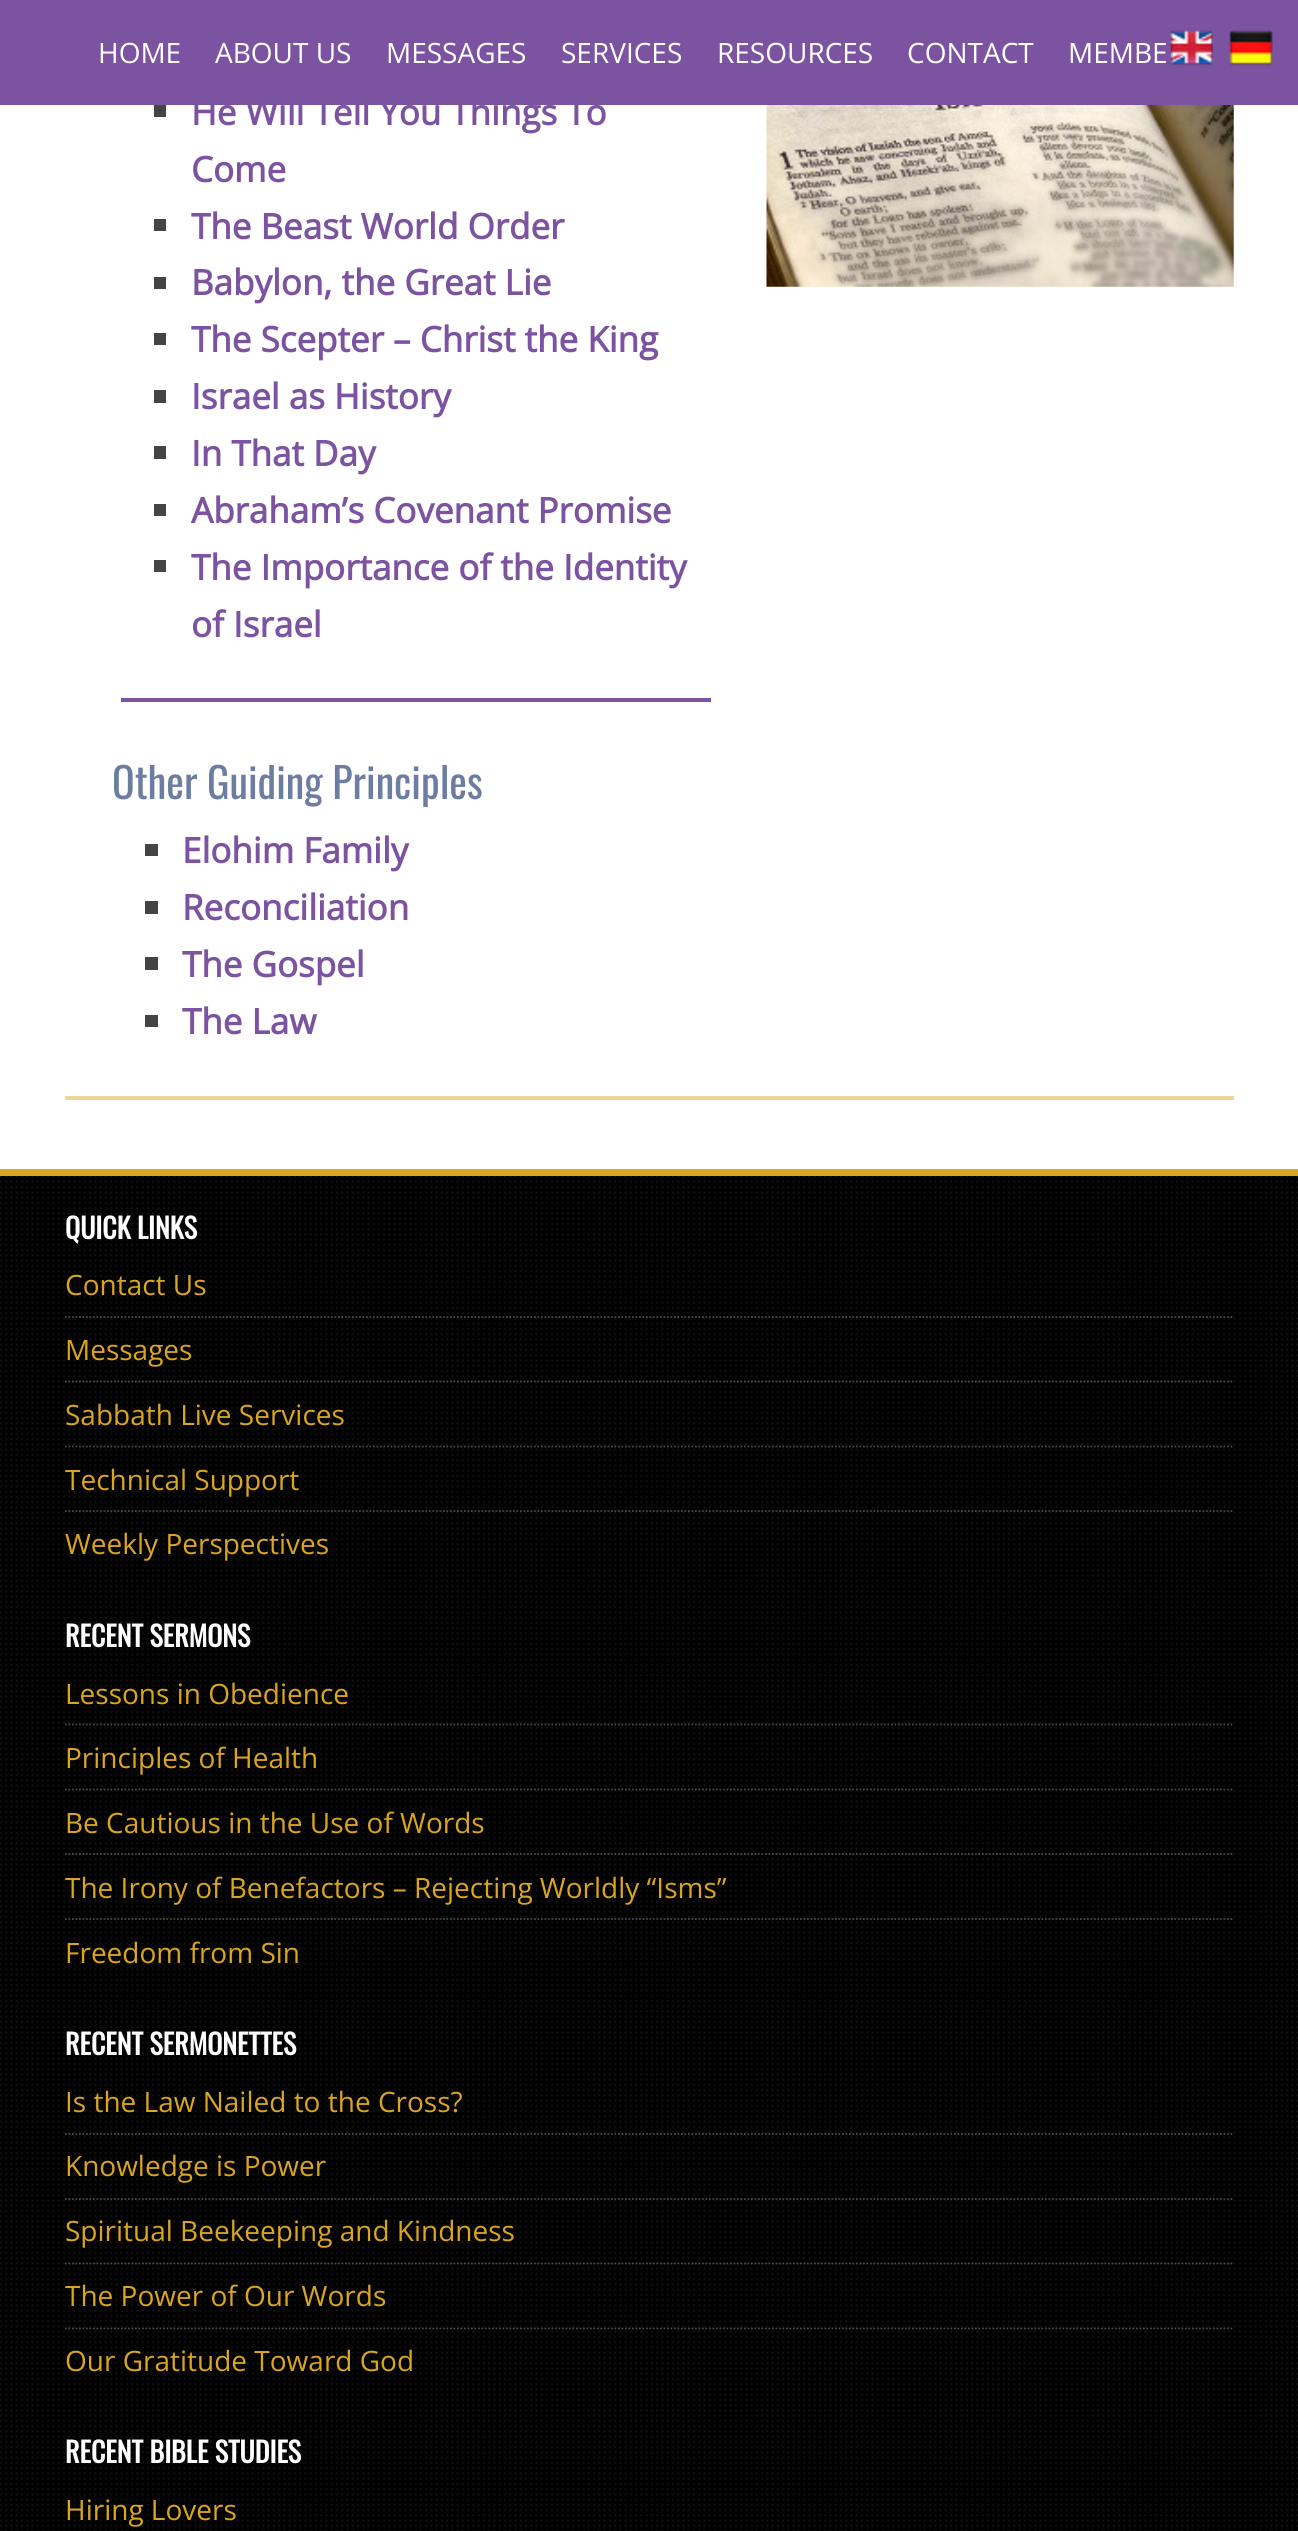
import math
import cairo

surface = cairo.ImageSurface(cairo.FORMAT_RGB24, 1298, 2531)
ctx = cairo.Context(surface)
options = cairo.FontOptions()
options.set_hint_metrics(cairo.HINT_METRICS_OFF)
options.set_hint_style(cairo.HINT_STYLE_NONE)
ctx.set_font_options(options)
ctx.set_miter_limit(4)


def set_color(code):
    ctx.set_source_rgb(*(v / 255 for v in bytes.fromhex(code[-6:])))


def draw_text(x, y, s, family, size, color, bold=False, italic=False):
    ctx.select_font_face(family, cairo.FONT_SLANT_ITALIC if italic else cairo.FONT_SLANT_NORMAL, cairo.FONT_WEIGHT_BOLD if bold else cairo.FONT_WEIGHT_NORMAL)
    ctx.set_font_size(size)
    set_color(color)
    ctx.move_to(x, y)
    ctx.show_text(s)


def fill_rect(x, y, w, h, color):
    set_color(color)
    ctx.rectangle(x, y, w, h)
    ctx.fill()


def draw_image(path, x, y, w, h):
    ctx.save()
    ctx.set_source_surface(cairo.ImageSurface.create_from_png(path), x, y)
    ctx.rectangle(x, y, w, h)
    ctx.fill()
    ctx.restore()


set_color("#ffffff")
ctx.paint()
fill_rect(0, 0, 1298, 105, "#7b53a1")
draw_text(98, 63, "HOME", "Open Sans", 28, "#ffffff")
draw_text(215, 63, "ABOUT US", "Open Sans", 28, "#ffffff")
draw_text(386, 63, "MESSAGES", "Open Sans", 28, "#ffffff")
draw_text(561, 63, "SERVICES", "Open Sans", 28, "#ffffff")
draw_text(717, 63, "RESOURCES", "Open Sans", 28, "#ffffff")
draw_text(907, 63, "CONTACT", "Open Sans", 28, "#ffffff")
draw_text(1068, 63, "MEMBE", "Open Sans", 28, "#ffffff")
fill_rect(65, 1096, 1169, 4, "#efd595")
fill_rect(154, 105, 12, 12, "#444444")
draw_text(191, 125, "He Will Tell You Things To", "Open Sans", 35, "#7b53a1", bold=True)
draw_text(191, 182, "Come", "Open Sans", 35, "#7b53a1", bold=True)
fill_rect(154, 219, 12, 12, "#444444")
draw_text(191, 239, "The Beast World Order", "Open Sans", 35, "#7b53a1", bold=True)
fill_rect(154, 277, 12, 12, "#444444")
draw_text(191, 295, "Babylon, the Great Lie", "Open Sans", 35, "#7b53a1", bold=True)
fill_rect(154, 333, 12, 12, "#444444")
draw_text(191, 352, "The Scepter – Christ the King", "Open Sans", 35, "#7b53a1", bold=True)
fill_rect(154, 390, 12, 13, "#444444")
draw_text(191, 409, "Israel as History", "Open Sans", 35, "#7b53a1", bold=True)
fill_rect(154, 446, 12, 13, "#444444")
draw_text(191, 466, "In That Day", "Open Sans", 35, "#7b53a1", bold=True)
fill_rect(154, 504, 12, 12, "#444444")
draw_text(191, 523, "Abraham’s Covenant Promise", "Open Sans", 35, "#7b53a1", bold=True)
fill_rect(154, 560, 12, 12, "#444444")
draw_text(191, 580, "The Importance of the Identity", "Open Sans", 35, "#7b53a1", bold=True)
draw_text(191, 637, "of Israel", "Open Sans", 35, "#7b53a1", bold=True)
fill_rect(121, 698, 590, 4, "#7b53a1")
draw_image("assets/img1.png", 766, 105, 468, 182)
draw_text(112, 799, "Other Guiding Principles", "Oswald", 42, "#6d7da1")
fill_rect(145, 844, 13, 12, "#444444")
draw_text(182, 863, "Elohim Family", "Open Sans", 35, "#7b53a1", bold=True)
fill_rect(145, 901, 13, 13, "#444444")
draw_text(182, 920, "Reconciliation", "Open Sans", 35, "#7b53a1", bold=True)
fill_rect(145, 957, 13, 13, "#444444")
draw_text(182, 977, "The Gospel", "Open Sans", 35, "#7b53a1", bold=True)
fill_rect(145, 1015, 13, 12, "#444444")
draw_text(182, 1034, "The Law", "Open Sans", 35, "#7b53a1", bold=True)
draw_image("assets/img2.png", 0, 1176, 1298, 1355)
fill_rect(0, 1169, 1298, 7, "#daa520")
draw_text(65, 1239, "QUICK LINKS", "Oswald", 28, "#ffffff", bold=True)
ctx.new_path()
ctx.move_to(65, 1317)
ctx.line_to(1234, 1317)
set_color("#494949")
ctx.set_line_width(1.8)
ctx.set_dash([1.75, 1.75])
ctx.stroke()
draw_text(65, 1295, "Contact Us", "Open Sans", 28, "#daa520")
ctx.new_path()
ctx.move_to(65, 1381.5)
ctx.line_to(1234, 1381.5)
set_color("#494949")
ctx.stroke()
draw_text(65, 1360, "Messages", "Open Sans", 28, "#daa520")
ctx.new_path()
ctx.move_to(65, 1446.5)
ctx.line_to(1234, 1446.5)
set_color("#494949")
ctx.stroke()
draw_text(65, 1425, "Sabbath Live Services", "Open Sans", 28, "#daa520")
ctx.new_path()
ctx.move_to(65, 1511)
ctx.line_to(1234, 1511)
set_color("#494949")
ctx.stroke()
draw_text(65, 1490, "Technical Support", "Open Sans", 28, "#daa520")
draw_text(65, 1554, "Weekly Perspectives", "Open Sans", 28, "#daa520")
draw_text(65, 1647, "RECENT SERMONS", "Oswald", 28, "#ffffff", bold=True)
ctx.new_path()
ctx.move_to(65, 1724.5)
ctx.line_to(1234, 1724.5)
set_color("#494949")
ctx.stroke()
draw_text(65, 1704, "Lessons in Obedience", "Open Sans", 28, "#daa520")
ctx.new_path()
ctx.move_to(65, 1789.5)
ctx.line_to(1234, 1789.5)
set_color("#494949")
ctx.stroke()
draw_text(65, 1768, "Principles of Health", "Open Sans", 28, "#daa520")
ctx.new_path()
ctx.move_to(65, 1854)
ctx.line_to(1234, 1854)
set_color("#494949")
ctx.stroke()
draw_text(65, 1833, "Be Cautious in the Use of Words", "Open Sans", 28, "#daa520")
ctx.new_path()
ctx.move_to(65, 1919)
ctx.line_to(1234, 1919)
set_color("#494949")
ctx.stroke()
draw_text(65, 1898, "The Irony of Benefactors – Rejecting Worldly “Isms”", "Open Sans", 28, "#daa520")
draw_text(65, 1963, "Freedom from Sin", "Open Sans", 28, "#daa520")
draw_text(65, 2055, "RECENT SERMONETTES", "Oswald", 28, "#ffffff", bold=True)
ctx.new_path()
ctx.move_to(65, 2134)
ctx.line_to(1234, 2134)
set_color("#494949")
ctx.stroke()
draw_text(65, 2112, "Is the Law Nailed to the Cross?", "Open Sans", 28, "#daa520")
ctx.new_path()
ctx.move_to(65, 2199)
ctx.line_to(1234, 2199)
set_color("#494949")
ctx.stroke()
draw_text(65, 2176, "Knowledge is Power", "Open Sans", 28, "#daa520")
ctx.new_path()
ctx.move_to(65, 2263.5)
ctx.line_to(1234, 2263.5)
set_color("#494949")
ctx.stroke()
draw_text(65, 2241, "Spiritual Beekeeping and Kindness", "Open Sans", 28, "#daa520")
ctx.new_path()
ctx.move_to(65, 2328.5)
ctx.line_to(1234, 2328.5)
set_color("#494949")
ctx.stroke()
draw_text(65, 2306, "The Power of Our Words", "Open Sans", 28, "#daa520")
draw_text(65, 2371, "Our Gratitude Toward God", "Open Sans", 28, "#daa520")
draw_text(65, 2463, "RECENT BIBLE STUDIES", "Oswald", 28, "#ffffff", bold=True)
draw_text(65, 2520, "Hiring Lovers", "Open Sans", 28, "#daa520")
draw_image("assets/img3.png", 1170, 29, 43, 37)
draw_image("assets/img4.png", 1229, 29, 44, 37)
surface.write_to_png("output.png")
